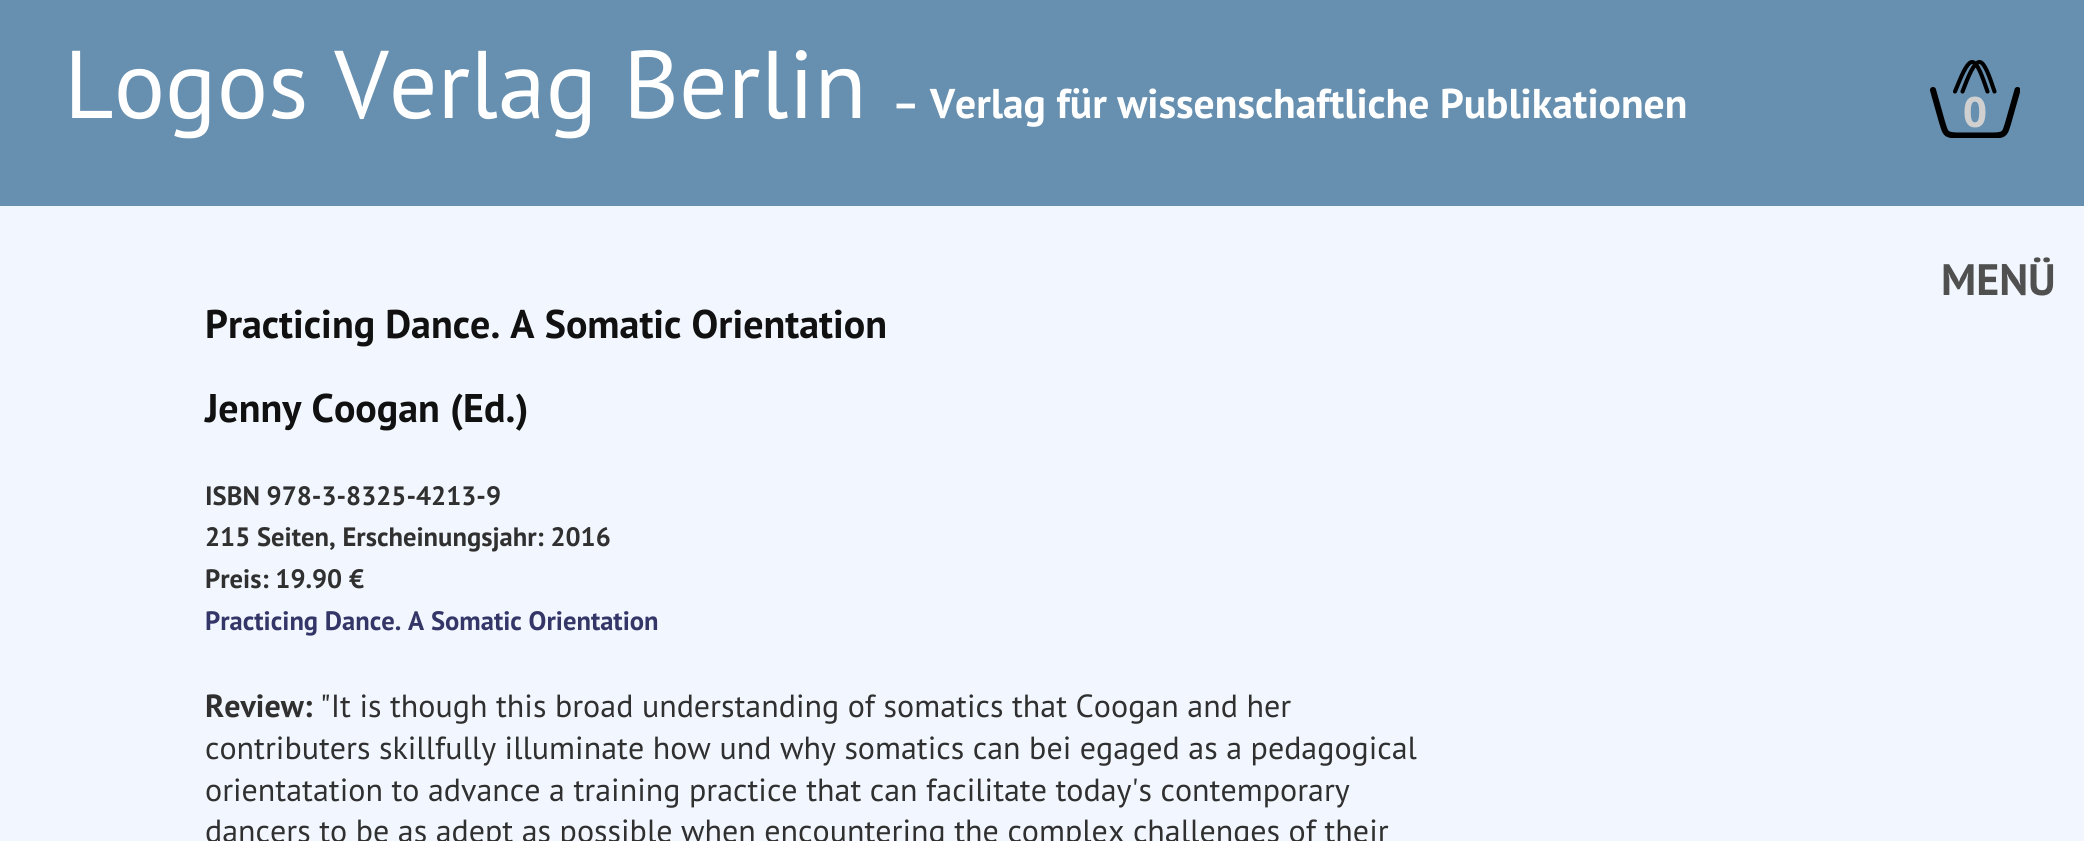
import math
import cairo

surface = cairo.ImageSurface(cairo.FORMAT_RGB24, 2084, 841)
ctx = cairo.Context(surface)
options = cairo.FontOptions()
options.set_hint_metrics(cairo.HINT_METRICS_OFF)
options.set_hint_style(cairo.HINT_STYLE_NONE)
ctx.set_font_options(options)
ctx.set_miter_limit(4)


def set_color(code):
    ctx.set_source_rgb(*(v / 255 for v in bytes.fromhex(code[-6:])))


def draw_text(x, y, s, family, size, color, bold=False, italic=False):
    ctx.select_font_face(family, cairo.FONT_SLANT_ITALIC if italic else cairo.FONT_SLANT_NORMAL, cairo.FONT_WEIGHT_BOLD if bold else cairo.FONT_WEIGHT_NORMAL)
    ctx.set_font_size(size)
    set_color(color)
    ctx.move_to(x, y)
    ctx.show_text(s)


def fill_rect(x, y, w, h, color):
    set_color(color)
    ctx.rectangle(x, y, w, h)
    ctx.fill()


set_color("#f2f7ff")
ctx.paint()
fill_rect(0, 0, 2084, 206, "#6790b0")
draw_text(64, 118, "Logos Verlag Berlin", "PT Sans", 96, "#ffffff")
draw_text(892, 118, "– Verlag für wissenschaftliche Publikationen", "PT Sans", 41.6, "#ffffff", bold=True)
ctx.save()
ctx.rectangle(1930, 60, 90, 78)
ctx.clip()
ctx.new_path()
ctx.move_to(1933, 90)
ctx.line_to(1942, 122)
ctx.curve_to(1945.5, 133, 1945, 135, 1956.5, 135.5)
ctx.line_to(1995, 135.5)
ctx.curve_to(2005.5, 135, 2005, 132.5, 2008, 123.5)
ctx.line_to(2017.5, 90)
set_color("#000000")
ctx.set_line_width(6.1)
ctx.set_line_cap(cairo.LINE_CAP_ROUND)
ctx.stroke()
ctx.restore()
draw_text(1963, 127, "0", "Noto Sans", 42, "#d0d0d0", bold=True)
ctx.new_path()
ctx.move_to(1955, 91.5)
ctx.curve_to(1961, 77, 1966.5, 62.5, 1972, 62)
ctx.curve_to(1977.5, 62, 1982.5, 77, 1987.5, 91.5)
ctx.move_to(1962.5, 91.5)
ctx.curve_to(1968, 77, 1974, 62, 1979.5, 62)
ctx.curve_to(1984.5, 62, 1989.5, 76.5, 1994.5, 91.5)
set_color("#000000")
ctx.set_line_width(4.1)
ctx.set_line_cap(cairo.LINE_CAP_ROUND)
ctx.stroke()
draw_text(1941, 295, "MENÜ", "PT Sans", 44, "#505050", bold=True)
draw_text(205, 338, "Practicing Dance. A Somatic Orientation", "PT Sans", 40, "#111111", bold=True)
draw_text(205, 422, "Jenny Coogan (Ed.)", "PT Sans", 40, "#111111", bold=True)
draw_text(205, 505, "ISBN 978-3-8325-4213-9", "PT Sans", 26.6, "#303030", bold=True)
draw_text(205, 546, "215 Seiten, Erscheinungsjahr: 2016", "PT Sans", 26.6, "#303030", bold=True)
draw_text(205, 588, "Preis: 19.90 €", "PT Sans", 26.6, "#303030", bold=True)
draw_text(205, 630, "Practicing Dance. A Somatic Orientation", "PT Sans", 26.6, "#343668", bold=True)
draw_text(205, 717, "Review:", "PT Sans", 32, "#303030", bold=True)
draw_text(320, 717, "\"It is though this broad understanding of somatics that Coogan and her", "PT Sans", 32, "#303030")
draw_text(205, 759, "contributers skillfully illuminate how und why somatics can bei egaged as a pedagogical", "PT Sans", 32, "#303030")
draw_text(205, 801, "orientatation to advance a training practice that can facilitate today's contemporary", "PT Sans", 32, "#303030")
draw_text(205, 842, "dancers to be as adept as possible when encountering the complex challenges of their", "PT Sans", 32, "#303030")
surface.write_to_png("output.png")
